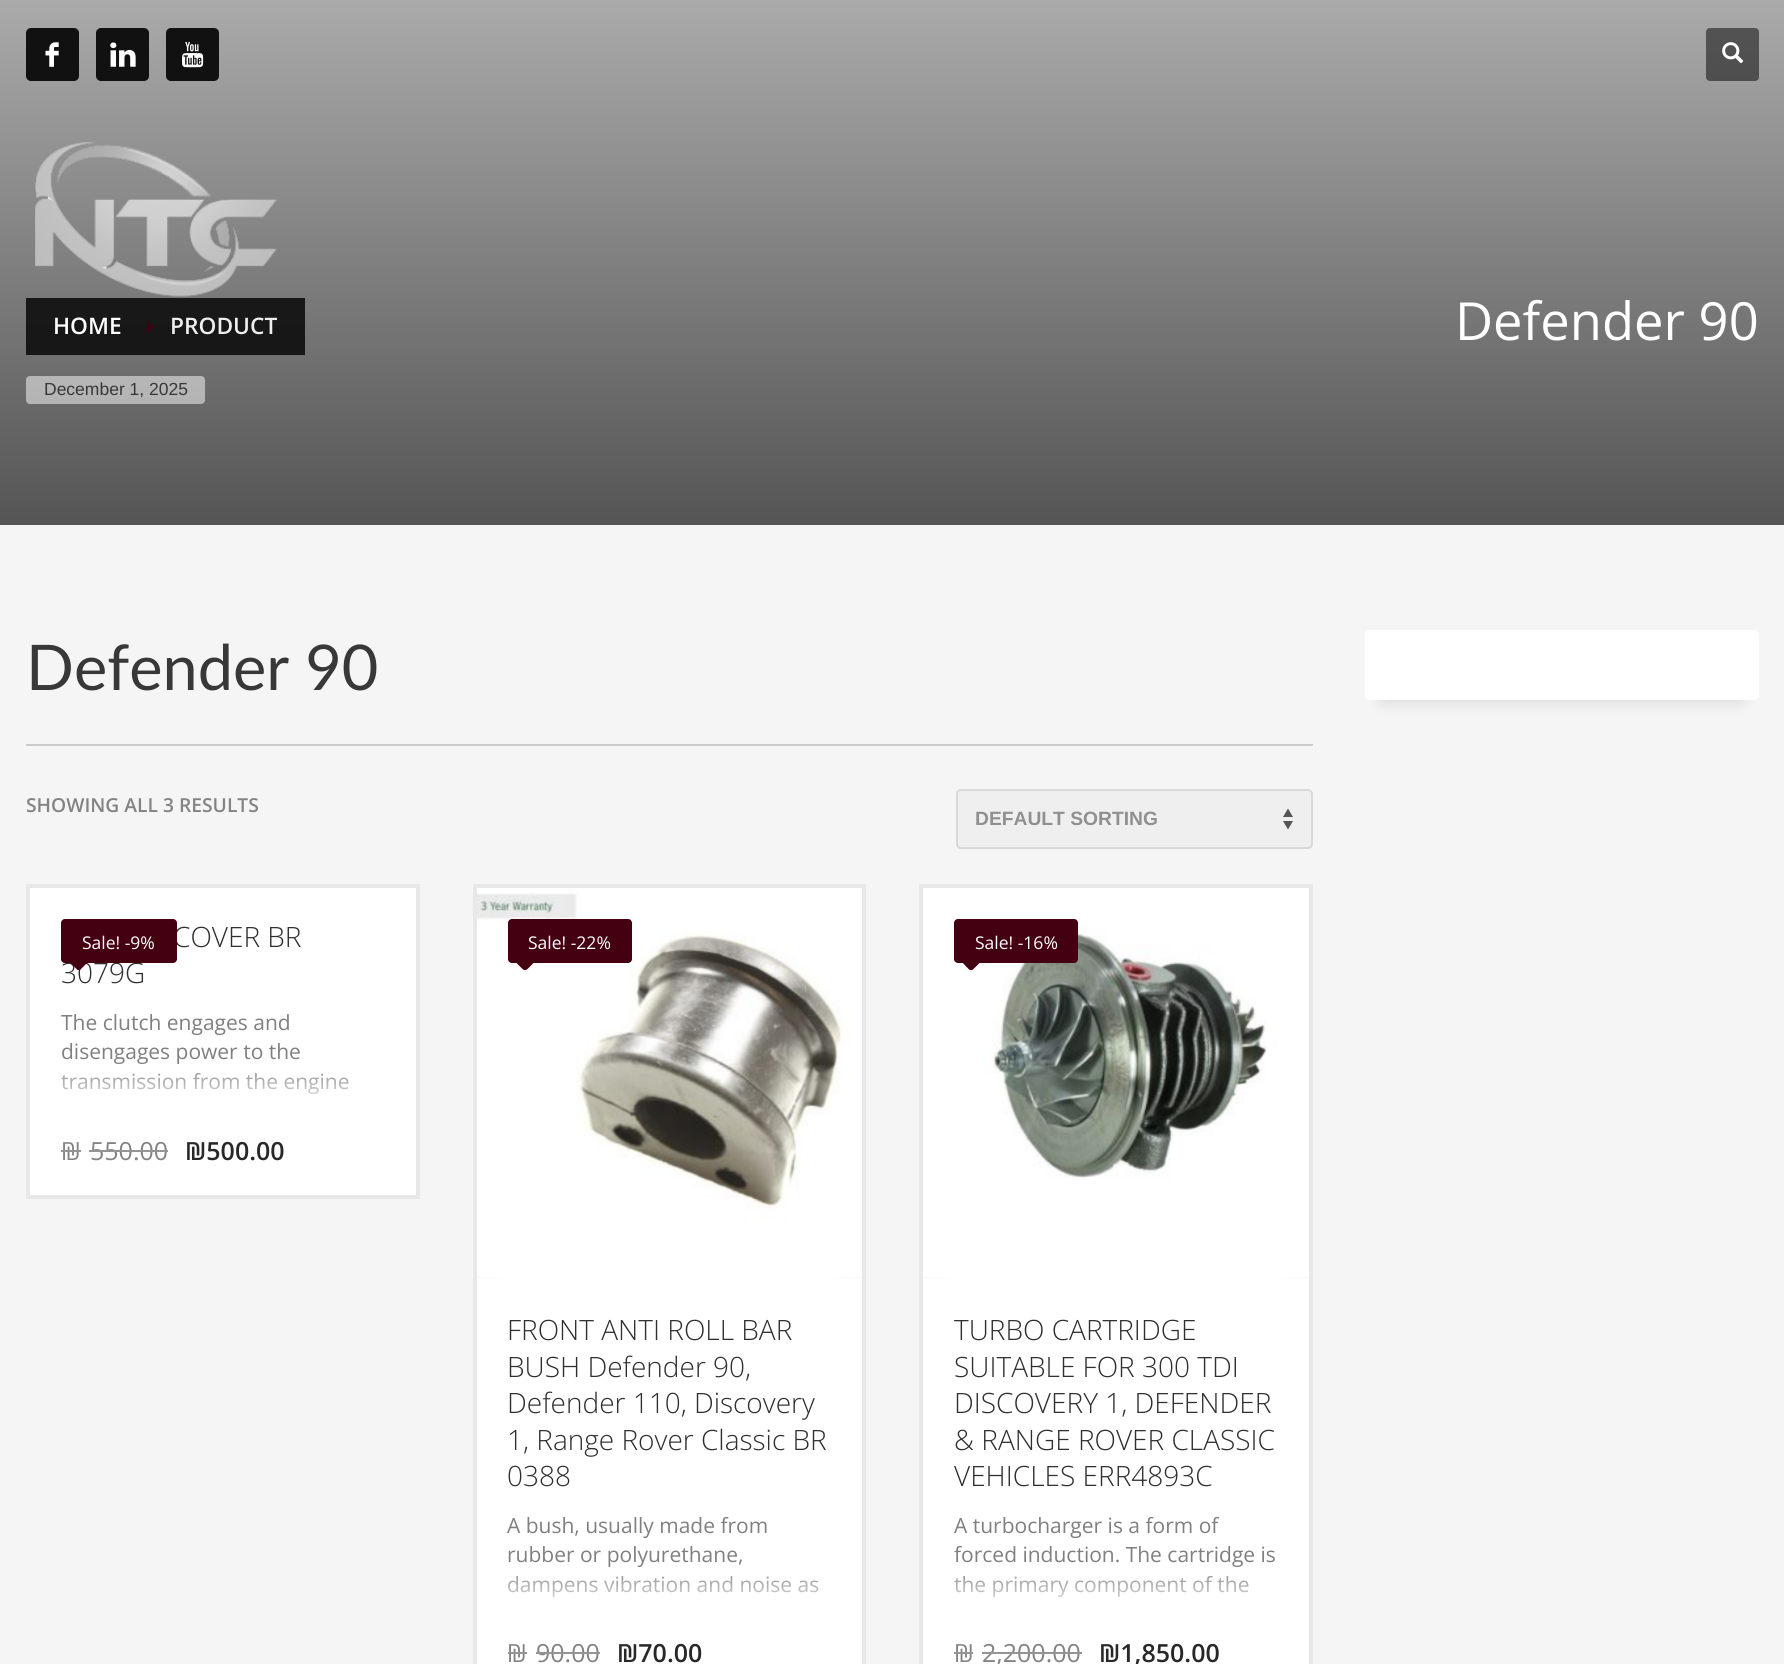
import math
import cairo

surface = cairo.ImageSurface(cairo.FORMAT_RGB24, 1784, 1664)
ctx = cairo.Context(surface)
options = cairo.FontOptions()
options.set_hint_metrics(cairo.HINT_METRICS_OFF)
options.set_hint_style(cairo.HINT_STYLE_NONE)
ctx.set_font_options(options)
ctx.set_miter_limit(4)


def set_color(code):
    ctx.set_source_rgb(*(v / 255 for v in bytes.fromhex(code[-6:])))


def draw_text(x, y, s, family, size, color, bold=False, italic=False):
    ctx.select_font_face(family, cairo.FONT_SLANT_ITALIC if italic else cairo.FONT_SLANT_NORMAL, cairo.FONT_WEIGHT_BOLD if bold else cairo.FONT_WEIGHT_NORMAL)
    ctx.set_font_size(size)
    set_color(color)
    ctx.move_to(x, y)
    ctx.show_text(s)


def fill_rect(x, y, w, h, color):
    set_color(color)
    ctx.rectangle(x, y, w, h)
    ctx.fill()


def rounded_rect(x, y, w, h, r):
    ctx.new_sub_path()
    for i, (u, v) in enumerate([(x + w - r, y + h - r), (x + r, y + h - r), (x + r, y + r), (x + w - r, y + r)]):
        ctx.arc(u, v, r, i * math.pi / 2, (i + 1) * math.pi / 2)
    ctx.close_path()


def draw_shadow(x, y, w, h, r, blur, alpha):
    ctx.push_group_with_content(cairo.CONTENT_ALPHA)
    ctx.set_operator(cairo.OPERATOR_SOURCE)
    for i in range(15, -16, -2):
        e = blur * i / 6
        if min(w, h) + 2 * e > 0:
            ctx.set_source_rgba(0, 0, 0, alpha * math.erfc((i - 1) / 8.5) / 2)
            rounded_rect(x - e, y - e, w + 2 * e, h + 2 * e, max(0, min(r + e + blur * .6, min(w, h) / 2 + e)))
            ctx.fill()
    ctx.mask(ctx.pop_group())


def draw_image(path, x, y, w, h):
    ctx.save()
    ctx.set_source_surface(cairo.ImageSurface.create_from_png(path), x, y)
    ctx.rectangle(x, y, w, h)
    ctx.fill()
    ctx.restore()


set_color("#f5f5f5")
ctx.paint()
gradient = cairo.LinearGradient(893, 0, 893, 525)
gradient.add_color_stop_rgba(0, 0.667, 0.667, 0.667, 1)
gradient.add_color_stop_rgba(1, 0.333, 0.333, 0.333, 1)
ctx.set_source(gradient)
ctx.rectangle(0, 0, 1784, 525)
ctx.fill()
set_color("#111111")
rounded_rect(26, 28, 53, 53, 5)
ctx.fill()
draw_image("assets/img1.png", 45, 42, 14, 25)
rounded_rect(96, 28, 53, 53, 5)
ctx.fill()
draw_image("assets/img2.png", 110, 42, 26, 25)
rounded_rect(166, 28, 53, 53, 5)
ctx.fill()
draw_image("assets/img3.png", 182, 41, 22, 27)
ctx.set_source_rgba(0, 0, 0, 0.5)
rounded_rect(1706, 28, 53, 53, 4)
ctx.fill()
draw_image("assets/img4.png", 1722, 42, 22, 22)
draw_image("assets/img5.png", 35, 142, 242, 155)
gradient = cairo.LinearGradient(893, 0, 893, 525)
gradient.add_color_stop_rgba(0, 0.133, 0.133, 0.133, 1)
gradient.add_color_stop_rgba(1, 0.067, 0.067, 0.067, 1)
ctx.set_source(gradient)
ctx.rectangle(130, 298, 175, 57)
ctx.fill()
ctx.rectangle(26, 298, 104, 57)
ctx.fill()
draw_text(53, 334, "HOME", "Open Sans SemiBold", 22.75, "#ffffff")
set_color("#440011")
ctx.new_path()
ctx.move_to(147, 334)
ctx.line_to(147, 320)
ctx.line_to(154, 327)
ctx.close_path()
ctx.fill()
draw_text(170, 334, "PRODUCT", "Open Sans SemiBold", 22.75, "#eeeeee")
ctx.set_source_rgba(1, 1, 1, 0.5)
rounded_rect(26, 376, 179, 28, 4)
ctx.fill()
draw_text(44, 395, "December 1, 2025", "Liberation Sans", 17.5, "#383838")
draw_text(1455, 340, "Defender 90", "Open Sans", 52.5, "#ffffff")
fill_rect(26, 744, 1287, 2, "#cbcbcb")
draw_text(26, 690, "Defender 90", "Lato", 63, "#383838")
draw_text(26, 812, "SHOWING ALL 3 RESULTS", "Open Sans SemiBold", 19.25, "#838383")
set_color("#efefef")
rounded_rect(956, 789, 357, 60, 5)
ctx.fill()
set_color("#555555")
ctx.set_fill_rule(cairo.FILL_RULE_EVEN_ODD)
ctx.new_path()
ctx.move_to(1288, 808.5)
ctx.line_to(1293, 817)
ctx.line_to(1283, 817)
ctx.close_path()
ctx.move_to(1288, 829.5)
ctx.line_to(1283, 821)
ctx.line_to(1293, 821)
ctx.close_path()
ctx.fill()
rounded_rect(957, 790, 355, 58, 4)
set_color("#d9d9d9")
ctx.stroke()
draw_text(975, 825, "DEFAULT SORTING", "Liberation Sans", 19.25, "#909090", bold=True)
fill_rect(30, 888, 386, 307, "#ffffff")
draw_text(61, 1160, "₪", "Open Sans", 25, "#838383")
fill_rect(61, 1150, 20, 2, "#949494")
draw_text(90, 1160, "550.00", "Open Sans", 25, "#838383")
fill_rect(89, 1150, 79, 2, "#949494")
ctx.rectangle(28, 886, 390, 311)
set_color("#e8e8e8")
ctx.set_line_width(4)
ctx.stroke()
draw_text(173, 947, "COVER BR", "Open Sans Light", 28, "#2f2f2f")
draw_text(61, 983, "3079G", "Open Sans Light", 28, "#2f2f2f")
ctx.select_font_face("Open Sans")
ctx.set_font_size(21)
gradient = cairo.LinearGradient(223, 1009, 223, 1114)
gradient.add_color_stop_rgba(0.5, 0.502, 0.502, 0.502, 1)
gradient.add_color_stop_rgba(1, 1, 1, 1, 1)
ctx.set_source(gradient)
ctx.move_to(61, 1030)
ctx.show_text("The clutch engages and")
ctx.move_to(61, 1059)
ctx.show_text("disengages power to the")
ctx.move_to(61, 1089)
ctx.show_text("transmission from the engine")
draw_text(185, 1160, "₪500.00", "Open Sans SemiBold", 25, "#282828")
set_color("#440011")
rounded_rect(61, 919, 116, 44, 4)
ctx.fill()
draw_text(82, 949, "Sale! -9%", "Open Sans", 17.5, "#ffffff")
set_color("#440011")
ctx.set_fill_rule(cairo.FILL_RULE_WINDING)
ctx.new_path()
ctx.move_to(81, 949)
ctx.line_to(88.5, 956.5)
ctx.curve_to(90, 958, 90, 960, 88.5, 961.5)
ctx.line_to(81, 969)
ctx.curve_to(80, 970.5, 77.5, 970.5, 76.5, 969)
ctx.line_to(69, 961.5)
ctx.curve_to(67.5, 960, 67.5, 958, 69, 956.5)
ctx.line_to(76.5, 949)
ctx.curve_to(77.5, 947.5, 80, 947.5, 81, 949)
ctx.close_path()
ctx.fill()
gradient = cairo.RadialGradient(0, 0, 0, 0, 0, 1)
gradient.set_matrix(cairo.Matrix(1 / 278, 0, 0, 1 / 578, -1 * 669 / 278, -1 * 1292 / 578))
gradient.add_color_stop_rgba(0, 1, 1, 1, 1)
gradient.add_color_stop_rgba(0.5, 1, 1, 1, 1)
gradient.add_color_stop_rgba(1, 0.929, 0.929, 0.929, 1)
ctx.set_source(gradient)
ctx.rectangle(477, 1276, 385, 2)
ctx.fill()
draw_image("assets/img6.png", 472, 884, 390, 393)
fill_rect(477, 1278, 385, 386, "#ffffff")
draw_text(507, 1662, "₪", "Open Sans", 25, "#838383")
fill_rect(508, 1652, 19, 2, "#949494")
draw_text(536, 1662, "90.00", "Open Sans", 25, "#838383")
fill_rect(536, 1652, 64, 2, "#949494")
ctx.rectangle(475, 886, 389, 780)
set_color("#e8e8e8")
ctx.stroke()
set_color("#440011")
rounded_rect(508, 919, 124, 44, 4)
ctx.fill()
draw_text(528, 949, "Sale! -22%", "Open Sans", 17.5, "#ffffff")
set_color("#440011")
ctx.new_path()
ctx.move_to(527.5, 949)
ctx.line_to(535, 956.5)
ctx.curve_to(536, 958, 536, 960, 535, 961.5)
ctx.line_to(527.5, 969)
ctx.curve_to(526, 970.5, 524, 970.5, 522.5, 969)
ctx.line_to(515, 961.5)
ctx.curve_to(513.5, 960, 513.5, 958, 515, 956.5)
ctx.line_to(522.5, 949)
ctx.curve_to(524, 947.5, 526, 947.5, 527.5, 949)
ctx.close_path()
ctx.fill()
draw_text(507, 1340, "FRONT ANTI ROLL BAR", "Open Sans Light", 28, "#2f2f2f")
draw_text(507, 1377, "BUSH Defender 90,", "Open Sans Light", 28, "#2f2f2f")
draw_text(507, 1413, "Defender 110, Discovery", "Open Sans Light", 28, "#2f2f2f")
draw_text(507, 1450, "1, Range Rover Classic BR", "Open Sans Light", 28, "#2f2f2f")
draw_text(507, 1486, "0388", "Open Sans Light", 28, "#2f2f2f")
ctx.select_font_face("Open Sans")
ctx.set_font_size(21)
gradient = cairo.LinearGradient(669, 1512, 669, 1617)
gradient.add_color_stop_rgba(0.5, 0.502, 0.502, 0.502, 1)
gradient.add_color_stop_rgba(1, 1, 1, 1, 1)
ctx.set_source(gradient)
ctx.move_to(507, 1533)
ctx.show_text("A bush, usually made from")
ctx.move_to(507, 1562)
ctx.show_text("rubber or polyurethane,")
ctx.move_to(507, 1592)
ctx.show_text("dampens vibration and noise as")
draw_text(617, 1662, "₪70.00", "Open Sans SemiBold", 25, "#282828")
gradient = cairo.RadialGradient(0, 0, 0, 0, 0, 1)
gradient.set_matrix(cairo.Matrix(1 / 278, 0, 0, 1 / 578, -1 * 1116 / 278, -1 * 1292 / 578))
gradient.add_color_stop_rgba(0, 1, 1, 1, 1)
gradient.add_color_stop_rgba(0.5, 1, 1, 1, 1)
gradient.add_color_stop_rgba(1, 0.929, 0.929, 0.929, 1)
ctx.set_source(gradient)
ctx.rectangle(923, 1276, 386, 2)
ctx.fill()
draw_image("assets/img7.png", 923, 888, 386, 389)
fill_rect(923, 1278, 386, 386, "#ffffff")
draw_text(954, 1662, "₪", "Open Sans", 25, "#838383")
fill_rect(954, 1652, 19, 2, "#949494")
draw_text(982, 1662, "2,200.00", "Open Sans", 25, "#838383")
fill_rect(982, 1652, 100, 2, "#949494")
ctx.rectangle(921, 886, 390, 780)
set_color("#e8e8e8")
ctx.stroke()
set_color("#440011")
rounded_rect(954, 919, 124, 44, 4)
ctx.fill()
draw_text(975, 949, "Sale! -16%", "Open Sans", 17.5, "#ffffff")
set_color("#440011")
ctx.new_path()
ctx.move_to(973.5, 949)
ctx.line_to(981, 956.5)
ctx.curve_to(982.5, 958, 982.5, 960, 981, 961.5)
ctx.line_to(973.5, 969)
ctx.curve_to(972.5, 970.5, 970, 970.5, 968.5, 969)
ctx.line_to(961.5, 961.5)
ctx.curve_to(960, 960, 960, 958, 961.5, 956.5)
ctx.line_to(968.5, 949)
ctx.curve_to(970, 947.5, 972.5, 947.5, 973.5, 949)
ctx.close_path()
ctx.fill()
draw_text(954, 1340, "TURBO CARTRIDGE", "Open Sans Light", 28, "#2f2f2f")
draw_text(954, 1377, "SUITABLE FOR 300 TDI", "Open Sans Light", 28, "#2f2f2f")
draw_text(954, 1413, "DISCOVERY 1, DEFENDER", "Open Sans Light", 28, "#2f2f2f")
draw_text(954, 1450, "& RANGE ROVER CLASSIC", "Open Sans Light", 28, "#2f2f2f")
draw_text(954, 1486, "VEHICLES ERR4893C", "Open Sans Light", 28, "#2f2f2f")
ctx.select_font_face("Open Sans")
ctx.set_font_size(21)
gradient = cairo.LinearGradient(1116, 1512, 1116, 1617)
gradient.add_color_stop_rgba(0.5, 0.502, 0.502, 0.502, 1)
gradient.add_color_stop_rgba(1, 1, 1, 1, 1)
ctx.set_source(gradient)
ctx.move_to(954, 1533)
ctx.show_text("A turbocharger is a form of")
ctx.move_to(954, 1562)
ctx.show_text("forced induction. The cartridge is")
ctx.move_to(954, 1592)
ctx.show_text("the primary component of the")
draw_text(1099, 1662, "₪1,850.00", "Open Sans SemiBold", 25, "#282828")
set_color("#000000")
draw_shadow(1383, 665, 358, 35, 0, 9, 0.15)
set_color("#ffffff")
rounded_rect(1365, 630, 394, 70, 5)
ctx.fill()
surface.write_to_png("output.png")
